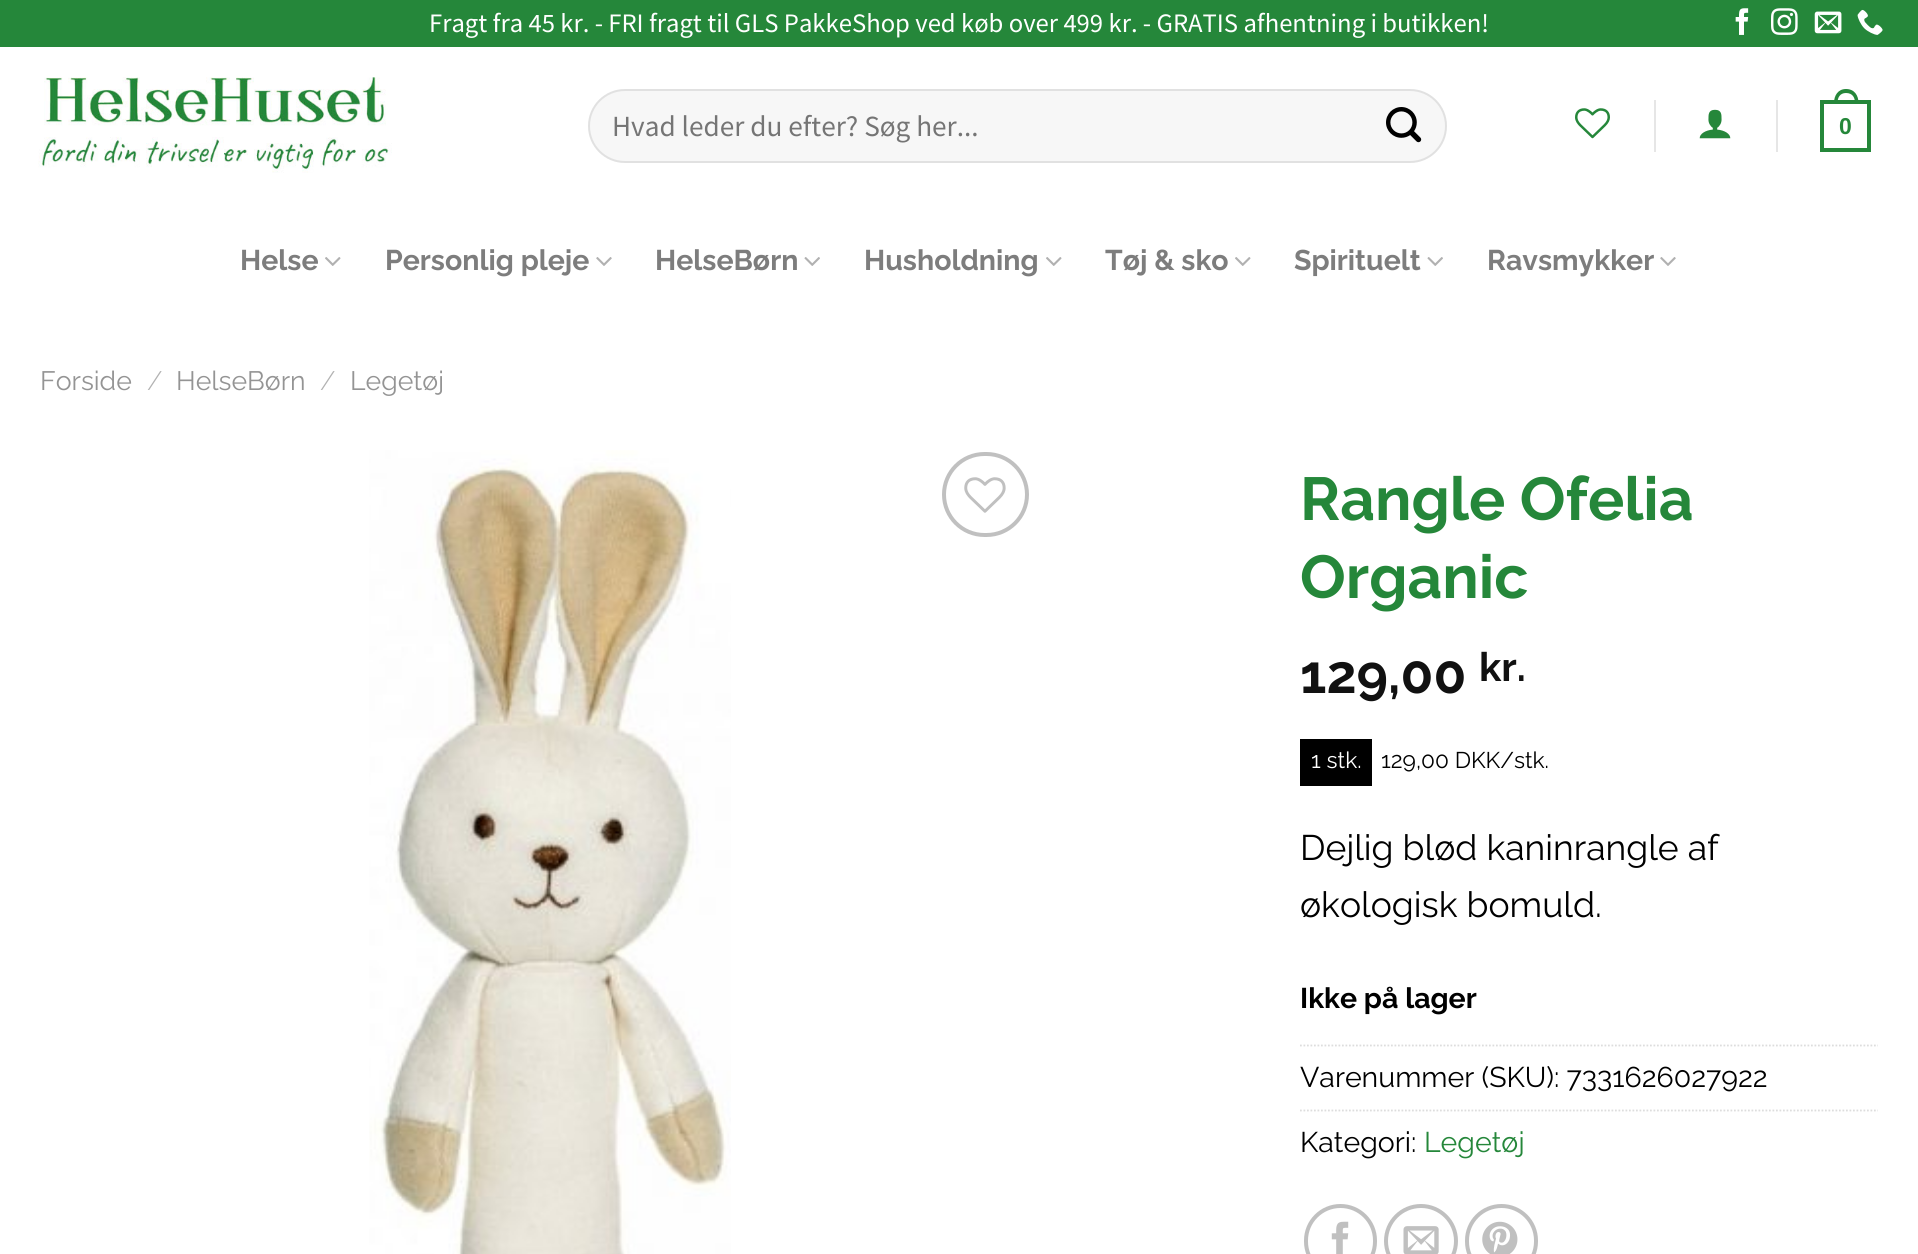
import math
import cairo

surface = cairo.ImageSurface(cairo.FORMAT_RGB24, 1918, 1254)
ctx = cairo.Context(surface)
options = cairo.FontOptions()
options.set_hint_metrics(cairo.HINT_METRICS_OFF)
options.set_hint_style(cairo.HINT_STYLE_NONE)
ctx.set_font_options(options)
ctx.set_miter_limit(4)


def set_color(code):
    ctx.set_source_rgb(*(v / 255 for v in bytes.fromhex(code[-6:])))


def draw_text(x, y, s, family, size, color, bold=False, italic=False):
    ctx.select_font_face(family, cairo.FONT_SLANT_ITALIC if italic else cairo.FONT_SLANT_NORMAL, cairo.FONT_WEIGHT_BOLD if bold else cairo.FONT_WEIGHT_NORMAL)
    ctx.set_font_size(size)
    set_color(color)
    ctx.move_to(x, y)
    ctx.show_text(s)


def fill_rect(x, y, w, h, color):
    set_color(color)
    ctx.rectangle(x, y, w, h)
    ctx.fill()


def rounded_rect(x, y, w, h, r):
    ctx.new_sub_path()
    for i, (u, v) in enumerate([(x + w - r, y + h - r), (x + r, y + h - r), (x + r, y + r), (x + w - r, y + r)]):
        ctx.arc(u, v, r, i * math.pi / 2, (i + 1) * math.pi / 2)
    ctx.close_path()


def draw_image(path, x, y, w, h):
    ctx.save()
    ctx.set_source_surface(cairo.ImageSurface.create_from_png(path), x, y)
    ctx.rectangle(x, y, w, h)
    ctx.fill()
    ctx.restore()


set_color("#ffffff")
ctx.paint()
fill_rect(0, 0, 1918, 47, "#25873a")
draw_text(429, 32, "Fragt fra 45 kr. - FRI fragt til GLS PakkeShop ved køb over 499 kr. - GRATIS afhentning i butikken!", "Source Sans Pro", 26.65, "#ffffff")
draw_image("assets/img1.png", 1735, 8, 14, 27)
draw_image("assets/img2.png", 1771, 8, 27, 27)
draw_image("assets/img3.png", 1814, 11, 28, 23)
draw_image("assets/img4.png", 1857, 9, 26, 26)
draw_image("assets/img5.png", 38, 77, 354, 96)
set_color("#f7f7f7")
rounded_rect(588, 89, 859, 74, 37)
ctx.fill()
rounded_rect(589, 90, 857, 72, 36)
ctx.set_source_rgba(0, 0, 0, 0.09)
ctx.stroke()
draw_text(612, 136, "Hvad leder du efter? Søg her...", "Source Sans Pro", 29.25, "#757575")
draw_image("assets/img6.png", 1386, 107, 36, 36)
draw_image("assets/img7.png", 1575, 108, 35, 31)
fill_rect(1654, 100, 2, 52, "#e6e6e6")
draw_image("assets/img8.png", 1699, 109, 32, 30)
fill_rect(1776, 100, 2, 52, "#e6e6e6")
ctx.rectangle(1822, 102, 47, 48)
set_color("#25873a")
ctx.set_line_width(4)
ctx.stroke()
ctx.set_fill_rule(cairo.FILL_RULE_EVEN_ODD)
ctx.new_path()
ctx.move_to(1846, 89)
ctx.curve_to(1854.5, 89, 1858.5, 95.5, 1858.5, 103)
ctx.line_to(1834, 103)
ctx.curve_to(1834, 95.5, 1838, 89, 1846, 89)
ctx.close_path()
ctx.move_to(1846, 93)
ctx.curve_to(1852.5, 93, 1855, 97.5, 1855, 103)
ctx.line_to(1837.5, 103)
ctx.curve_to(1837.5, 97.5, 1840, 93, 1846, 93)
ctx.close_path()
ctx.fill()
draw_text(1839, 134, "0", "Liberation Sans", 23, "#25873a", bold=True)
draw_text(240, 270, "Helse", "Raleway", 28.5, "#7d7d7d", bold=True)
draw_image("assets/img9.png", 325, 257, 16, 9)
draw_text(385, 270, "Personlig pleje", "Raleway", 28.5, "#7d7d7d", bold=True)
draw_image("assets/img10.png", 596, 257, 16, 9)
draw_text(655, 270, "HelseBørn", "Raleway", 28.5, "#7d7d7d", bold=True)
draw_image("assets/img11.png", 804, 257, 16, 9)
draw_text(864, 270, "Husholdning", "Raleway", 28.5, "#7d7d7d", bold=True)
draw_image("assets/img9.png", 1046, 257, 16, 9)
draw_text(1105, 270, "Tøj & sko", "Raleway", 28.5, "#7d7d7d", bold=True)
draw_image("assets/img9.png", 1235, 257, 16, 9)
draw_text(1294, 270, "Spirituelt", "Raleway", 28.5, "#7d7d7d", bold=True)
draw_image("assets/img11.png", 1427, 257, 16, 9)
draw_text(1487, 270, "Ravsmykker", "Raleway", 28.5, "#7d7d7d", bold=True)
draw_image("assets/img10.png", 1660, 257, 16, 9)
set_color("#ffffff")
ctx.set_fill_rule(cairo.FILL_RULE_WINDING)
ctx.new_path()
ctx.move_to(1596, 290.5)
ctx.line_to(1568, 290.5)
ctx.line_to(1582, 276.5)
ctx.close_path()
ctx.fill()
draw_text(40, 390, "Forside", "Raleway", 26.65, "#949494")
draw_text(147, 390, "/", "Raleway Light", 26.65, "#b2b2b2")
draw_text(176, 390, "HelseBørn", "Raleway", 26.65, "#949494")
draw_text(320, 390, "/", "Raleway Light", 26.65, "#b2b2b2")
draw_text(350, 390, "Legetøj", "Raleway", 26.65, "#949494")
draw_image("assets/img12.png", 369, 450, 362, 804)
rounded_rect(944, 454, 83, 81, 40.5)
set_color("#c0c0c0")
ctx.stroke()
draw_image("assets/img13.png", 964, 477, 42, 36)
draw_text(1300, 520, "Rangle Ofelia", "Raleway", 60.5, "#25873a", bold=True)
draw_text(1300, 598, "Organic", "Raleway", 60.5, "#25873a", bold=True)
draw_text(1300, 693, "129,00", "Raleway", 53.5, "#111111", bold=True)
draw_text(1479, 681, "kr.", "Raleway", 40, "#111111", bold=True)
fill_rect(1300, 739, 72, 47, "#000000")
draw_text(1311, 768, "1 stk.", "Raleway", 22.75, "#ffffff")
draw_text(1381, 768, "129,00 DKK/stk.", "Raleway", 22.75, "#000000")
draw_text(1300, 860, "Dejlig blød kaninrangle af", "Raleway", 35.5, "#000000")
draw_text(1300, 917, "økologisk bomuld.", "Raleway", 35.5, "#000000")
draw_text(1300, 1008, "Ikke på lager", "Raleway", 28.5, "#000000", bold=True)
ctx.new_path()
ctx.move_to(1300, 1045.5)
ctx.line_to(1878, 1045.5)
set_color("#dddddd")
ctx.set_line_width(1.8)
ctx.set_dash([1.75, 1.75])
ctx.stroke()
draw_text(1300, 1087, "Varenummer (SKU): 7331626027922", "Raleway", 28.5, "#000000")
ctx.new_path()
ctx.move_to(1300, 1110.5)
ctx.line_to(1878, 1110.5)
set_color("#dddddd")
ctx.stroke()
draw_text(1300, 1152, "Kategori:", "Raleway", 28.5, "#000000")
draw_text(1424, 1152, "Legetøj", "Raleway", 28.5, "#25873a")
rounded_rect(1306, 1206, 69, 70, 34.5)
set_color("#c0c0c0")
ctx.set_line_width(4)
ctx.set_dash([])
ctx.stroke()
draw_image("assets/img14.png", 1331, 1221, 18, 33)
ctx.arc(1421, 1241, 35, 0, 2 * math.pi)
ctx.stroke()
draw_image("assets/img15.png", 1403, 1226, 36, 28)
rounded_rect(1467, 1206, 69, 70, 34.5)
ctx.stroke()
draw_image("assets/img16.png", 1482, 1221, 36, 33)
surface.write_to_png("output.png")
